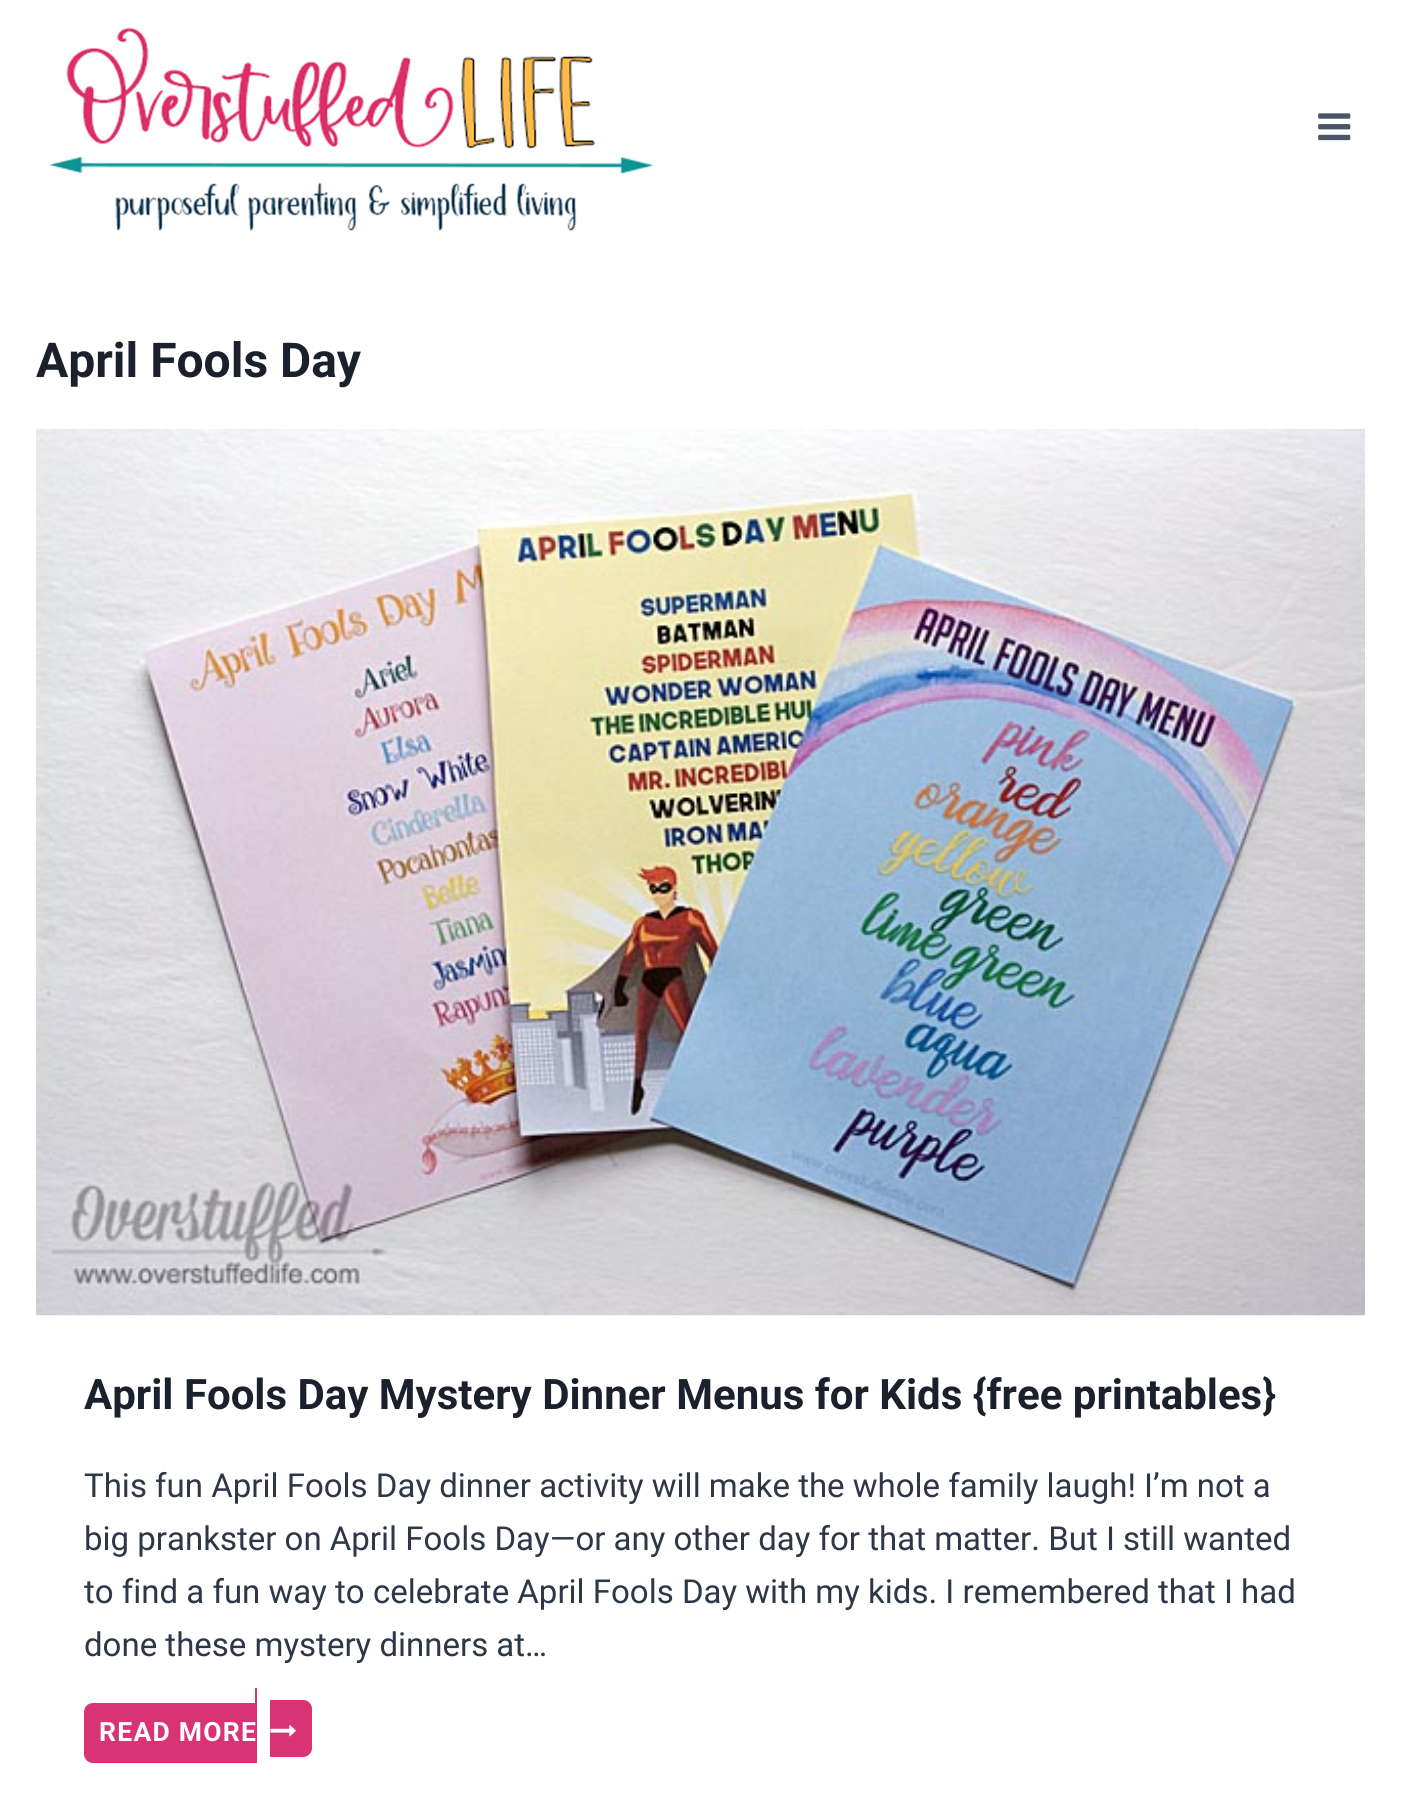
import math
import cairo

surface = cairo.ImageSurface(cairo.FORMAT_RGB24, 1401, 1801)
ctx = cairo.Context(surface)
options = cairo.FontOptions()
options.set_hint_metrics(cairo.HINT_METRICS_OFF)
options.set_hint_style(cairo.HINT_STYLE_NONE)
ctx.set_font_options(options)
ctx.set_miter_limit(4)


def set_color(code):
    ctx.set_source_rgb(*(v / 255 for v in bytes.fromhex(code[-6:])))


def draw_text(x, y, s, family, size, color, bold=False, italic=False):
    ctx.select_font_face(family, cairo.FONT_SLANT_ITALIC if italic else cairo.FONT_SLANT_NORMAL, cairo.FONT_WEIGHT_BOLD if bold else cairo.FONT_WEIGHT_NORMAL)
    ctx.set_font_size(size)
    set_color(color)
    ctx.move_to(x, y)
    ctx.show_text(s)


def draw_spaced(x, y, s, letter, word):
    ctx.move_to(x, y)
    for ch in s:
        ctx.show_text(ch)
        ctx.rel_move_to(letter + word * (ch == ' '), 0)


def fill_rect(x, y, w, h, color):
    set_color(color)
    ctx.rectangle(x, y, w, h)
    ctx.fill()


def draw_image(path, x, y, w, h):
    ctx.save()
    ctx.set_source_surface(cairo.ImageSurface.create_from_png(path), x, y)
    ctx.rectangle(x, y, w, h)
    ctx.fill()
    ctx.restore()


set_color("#ffffff")
ctx.paint()
draw_image("assets/img1.png", 49, 27, 604, 204)
draw_image("assets/img2.png", 1318, 113, 33, 28)
draw_text(36, 377, "April Fools Day", "Roboto", 48, "#1a202c", bold=True)
draw_image("assets/img3.png", 36, 429, 1329, 887)
draw_text(84, 1409, "April Fools Day Mystery Dinner Menus for Kids {free printables}", "Roboto", 42, "#1a202c", bold=True)
draw_text(84, 1497, "This fun April Fools Day dinner activity will make the whole family laugh! I’m not a", "Roboto", 33, "#2d3748")
draw_text(84, 1550, "big prankster on April Fools Day—or any other day for that matter. But I still wanted", "Roboto", 33, "#2d3748")
draw_text(84, 1603, "to find a fun way to celebrate April Fools Day with my kids. I remembered that I had", "Roboto", 33, "#2d3748")
draw_text(84, 1656, "done these mystery dinners at…", "Roboto", 33, "#2d3748")
set_color("#d83475")
ctx.new_path()
ctx.move_to(93, 1703)
ctx.line_to(257, 1703)
ctx.line_to(257, 1763)
ctx.line_to(93, 1763)
ctx.curve_to(88, 1763, 84, 1759, 84, 1754)
ctx.line_to(84, 1712)
ctx.curve_to(84, 1707, 88, 1703, 93, 1703)
ctx.close_path()
ctx.fill()
fill_rect(255, 1688, 2, 15, "#d83475")
ctx.new_path()
ctx.move_to(270, 1700)
ctx.line_to(303, 1700)
ctx.curve_to(308, 1700, 312, 1704, 312, 1709)
ctx.line_to(312, 1748)
ctx.curve_to(312, 1753, 308, 1757, 303, 1757)
ctx.line_to(270, 1757)
ctx.close_path()
ctx.fill()
ctx.select_font_face("Roboto", cairo.FONT_SLANT_NORMAL, cairo.FONT_WEIGHT_BOLD)
ctx.set_font_size(26.5)
set_color("#ffffff")
draw_spaced(99, 1741, "READ MORE", 1.25, 0)
draw_image("assets/img4.png", 270, 1725, 26, 12)
surface.write_to_png("output.png")
